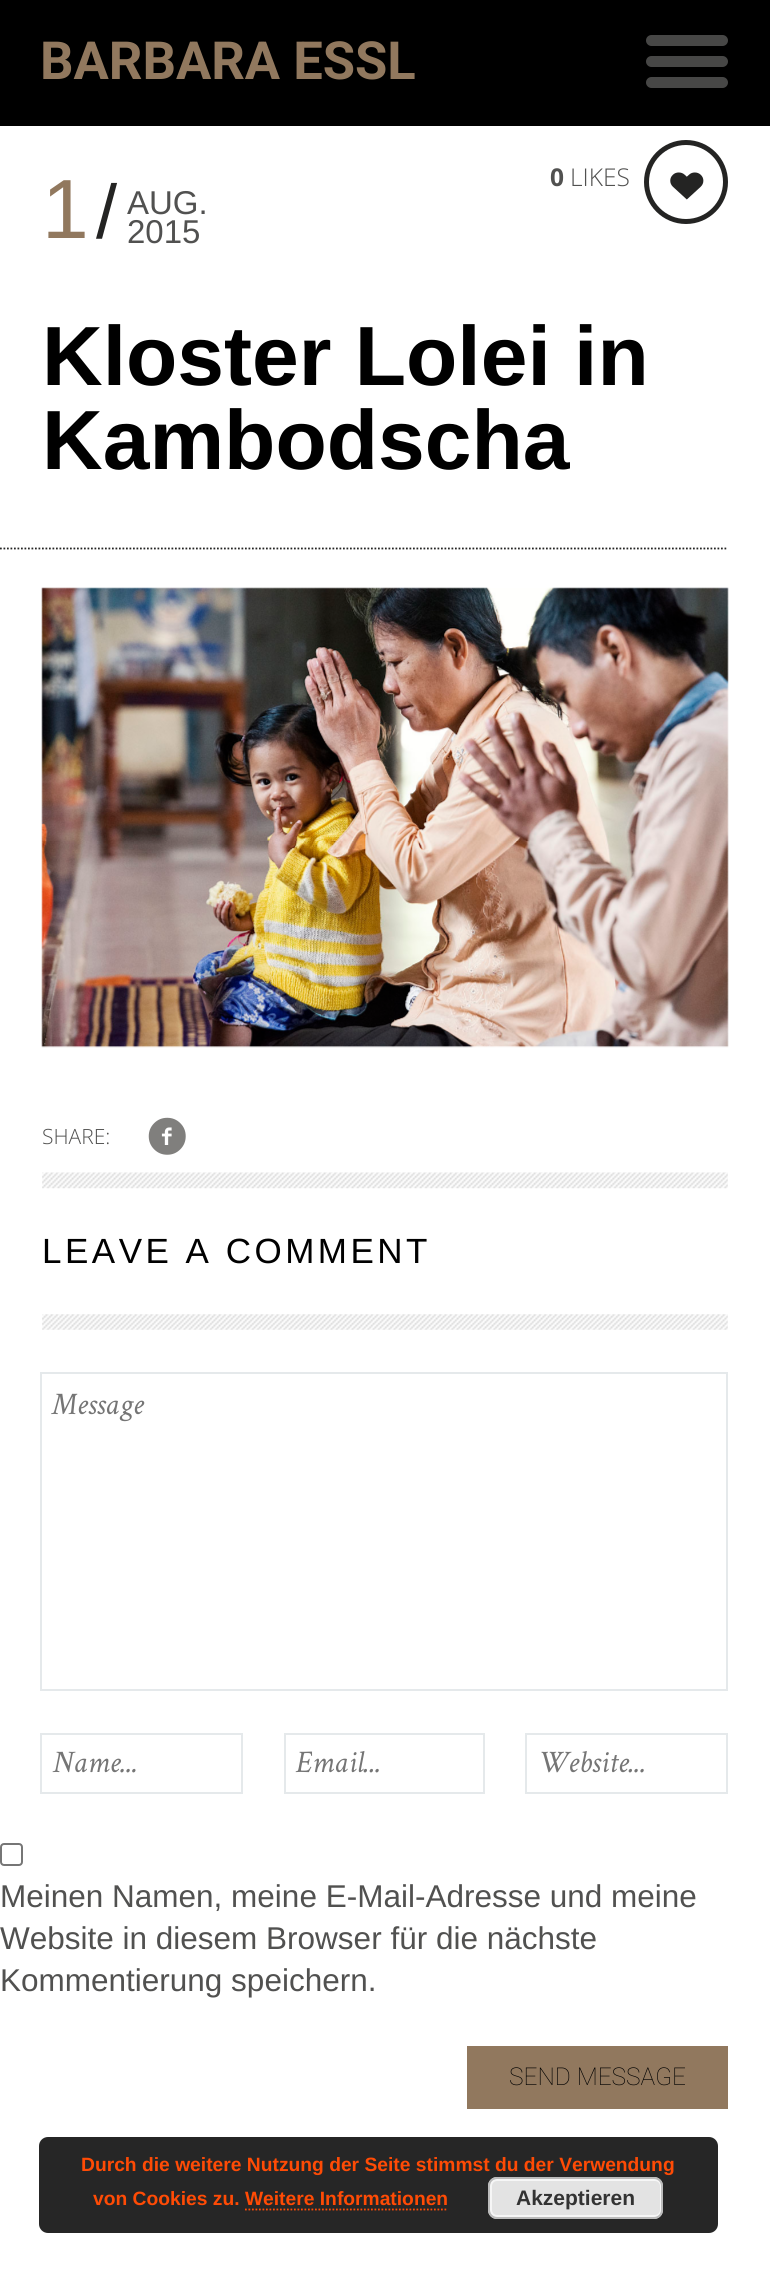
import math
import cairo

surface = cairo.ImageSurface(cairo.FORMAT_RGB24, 770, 2285)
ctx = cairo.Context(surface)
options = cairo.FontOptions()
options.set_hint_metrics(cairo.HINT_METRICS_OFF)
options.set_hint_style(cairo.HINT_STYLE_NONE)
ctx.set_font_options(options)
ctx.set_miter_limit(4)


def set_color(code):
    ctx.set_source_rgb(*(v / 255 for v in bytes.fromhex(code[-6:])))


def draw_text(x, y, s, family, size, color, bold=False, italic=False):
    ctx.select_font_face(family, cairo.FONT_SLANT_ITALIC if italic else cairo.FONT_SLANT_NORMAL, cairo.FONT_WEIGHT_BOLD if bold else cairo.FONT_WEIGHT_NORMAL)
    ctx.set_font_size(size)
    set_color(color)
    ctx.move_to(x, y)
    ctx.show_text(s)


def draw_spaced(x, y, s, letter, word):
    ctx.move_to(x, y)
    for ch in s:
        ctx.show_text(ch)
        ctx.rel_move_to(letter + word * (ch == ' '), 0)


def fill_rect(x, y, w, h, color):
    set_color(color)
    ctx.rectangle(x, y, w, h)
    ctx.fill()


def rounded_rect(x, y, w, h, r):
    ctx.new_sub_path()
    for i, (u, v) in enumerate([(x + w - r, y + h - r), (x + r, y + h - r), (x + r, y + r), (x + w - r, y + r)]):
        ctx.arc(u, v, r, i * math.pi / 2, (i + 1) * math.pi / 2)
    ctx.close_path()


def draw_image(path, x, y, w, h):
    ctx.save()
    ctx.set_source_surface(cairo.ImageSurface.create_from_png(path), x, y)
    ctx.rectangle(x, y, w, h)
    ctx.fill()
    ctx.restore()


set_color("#ffffff")
ctx.paint()
fill_rect(0, 0, 770, 126, "#000000")
draw_text(40, 79, "BARBARA ESSL", "Roboto", 52.5, "#91785e", bold=True)
set_color("#474746")
rounded_rect(646, 56, 82, 11, 5.5)
ctx.fill()
rounded_rect(646, 35, 82, 11, 5.5)
ctx.fill()
rounded_rect(646, 77, 82, 11, 5.5)
ctx.fill()
draw_text(550, 186, "0", "Open Sans", 24.5, "#515150", bold=True)
draw_text(570, 186, "LIKES", "Open Sans Light", 24.5, "#515150")
ctx.new_path()
ctx.arc(686, 182, 39.5, 0, 2 * math.pi)
set_color("#242423")
ctx.set_line_width(5)
ctx.stroke()
draw_image("assets/img1.png", 670, 172, 34, 28)
draw_image("assets/img2.png", 41, 587, 688, 461)
draw_text(42, 238, "1", "Liberation Sans", 84, "#91785e")
draw_text(96, 238, "/", "Liberation Sans", 76, "#242423")
draw_text(127, 214, "AUG.", "Liberation Sans", 33, "#515150")
draw_text(127, 243, "2015", "Liberation Sans", 33, "#515150")
draw_text(42, 385, "Kloster Lolei in", "Liberation Sans", 84, "#000000", bold=True)
draw_text(42, 469, "Kambodscha", "Liberation Sans", 84, "#000000", bold=True)
ctx.new_path()
ctx.move_to(-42, 548.5)
ctx.line_to(728, 548.5)
set_color("#242423")
ctx.set_line_width(1.8)
ctx.set_dash([1.75, 1.75])
ctx.stroke()
draw_text(42, 1144, "SHARE:", "Open Sans Light", 21, "#515150")
draw_image("assets/img3.png", 148, 1117, 38, 38)
draw_image("assets/img4.png", 42, 1172, 686, 17)
ctx.select_font_face("Liberation Sans")
ctx.set_font_size(35)
set_color("#000000")
draw_spaced(42, 1263, "LEAVE A COMMENT", 3.5, 0)
draw_image("assets/img5.png", 42, 1314, 686, 16)
ctx.rectangle(41, 1373, 686, 317)
set_color("#e5e9eb")
ctx.set_line_width(2)
ctx.set_dash([])
ctx.stroke()
draw_text(52, 1414, "Message", "Crimson Text", 31.5, "#757575", italic=True)
ctx.rectangle(41, 1734, 201, 59)
set_color("#e5e9eb")
ctx.stroke()
draw_text(52, 1772, "Name...", "Crimson Text", 31.5, "#757575", italic=True)
ctx.rectangle(285, 1734, 199, 59)
set_color("#e5e9eb")
ctx.stroke()
draw_text(295, 1772, "Email...", "Crimson Text", 31.5, "#757575", italic=True)
ctx.rectangle(526, 1734, 201, 59)
set_color("#e5e9eb")
ctx.stroke()
draw_text(538, 1772, "Website...", "Crimson Text", 31.5, "#757575", italic=True)
rounded_rect(1, 1844, 21, 21, 3)
set_color("#767676")
ctx.stroke()
draw_text(0, 1907, "Meinen Namen, meine E-Mail-Adresse und meine", "Liberation Sans", 31.5, "#515150")
draw_text(0, 1949, "Website in diesem Browser für die nächste", "Liberation Sans", 31.5, "#515150")
draw_text(0, 1991, "Kommentierung speichern.", "Liberation Sans", 31.5, "#515150")
fill_rect(467, 2046, 261, 63, "#91785e")
draw_text(509, 2085, "SEND MESSAGE", "Roboto Thin", 24.5, "#000000")
set_color("#262626")
rounded_rect(39, 2137, 679, 96, 9)
ctx.fill()
draw_text(81, 2171, "Durch die weitere Nutzung der Seite stimmst du der Verwendung", "Liberation Sans", 19.25, "#ff4b05", bold=True)
draw_text(93, 2205, "von Cookies zu. Weitere Informationen", "Liberation Sans", 19.25, "#ff4b05", bold=True)
set_color("#e3e3e3")
rounded_rect(488, 2177, 175, 42, 9)
ctx.fill()
rounded_rect(491, 2180, 170, 36, 6)
set_color("#f6f6f6")
ctx.stroke()
rounded_rect(489, 2178, 173, 40, 8)
set_color("#bbbbbb")
ctx.stroke()
draw_text(516, 2205, "Akzeptieren", "Liberation Sans", 21, "#333333", bold=True)
ctx.new_path()
ctx.move_to(245, 2209.5)
ctx.line_to(448, 2209.5)
set_color("#ff4b05")
ctx.set_line_width(1.8)
ctx.set_dash([1.75, 1.75])
ctx.stroke()
surface.write_to_png("output.png")
